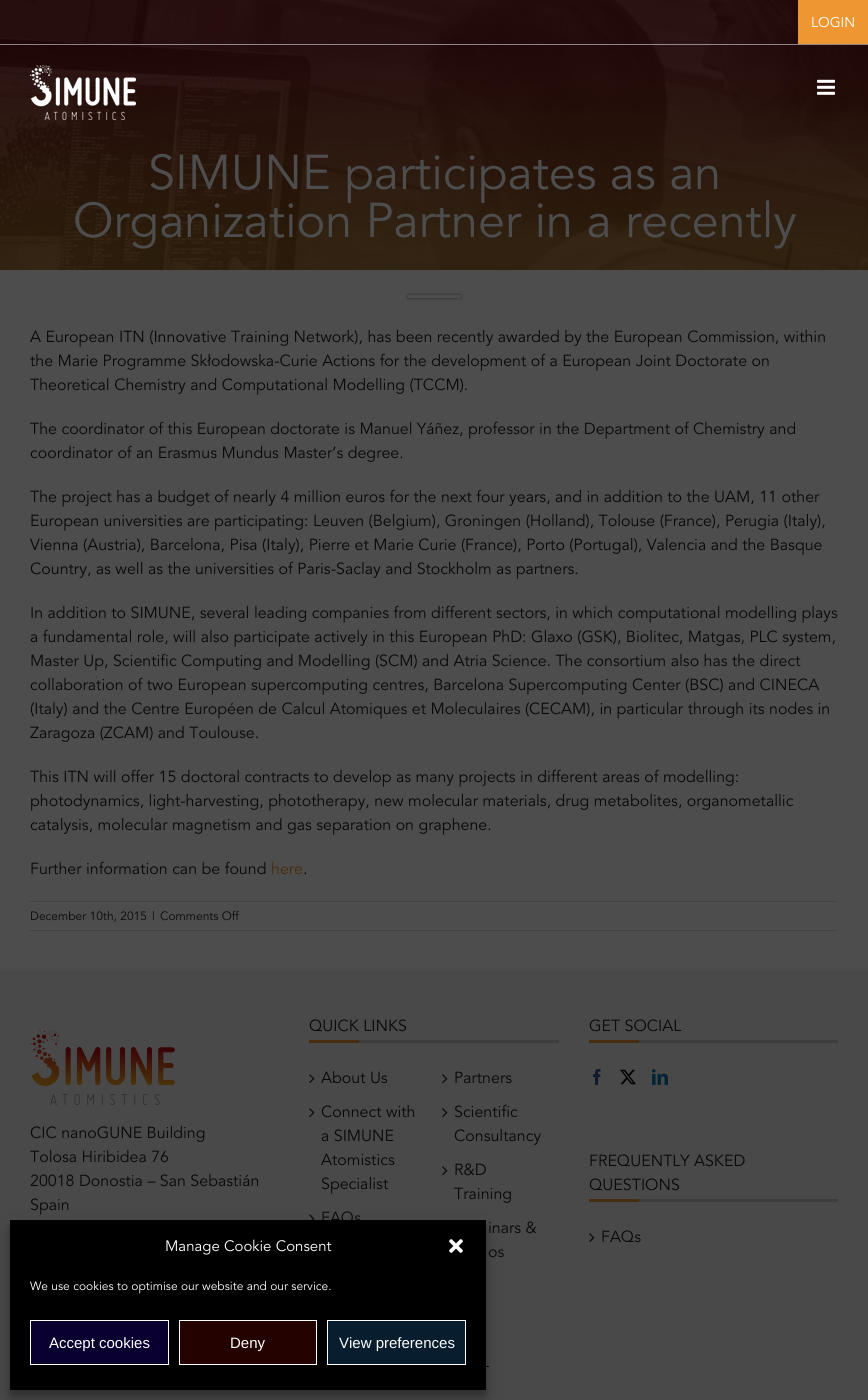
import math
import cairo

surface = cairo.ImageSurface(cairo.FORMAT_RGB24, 868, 1400)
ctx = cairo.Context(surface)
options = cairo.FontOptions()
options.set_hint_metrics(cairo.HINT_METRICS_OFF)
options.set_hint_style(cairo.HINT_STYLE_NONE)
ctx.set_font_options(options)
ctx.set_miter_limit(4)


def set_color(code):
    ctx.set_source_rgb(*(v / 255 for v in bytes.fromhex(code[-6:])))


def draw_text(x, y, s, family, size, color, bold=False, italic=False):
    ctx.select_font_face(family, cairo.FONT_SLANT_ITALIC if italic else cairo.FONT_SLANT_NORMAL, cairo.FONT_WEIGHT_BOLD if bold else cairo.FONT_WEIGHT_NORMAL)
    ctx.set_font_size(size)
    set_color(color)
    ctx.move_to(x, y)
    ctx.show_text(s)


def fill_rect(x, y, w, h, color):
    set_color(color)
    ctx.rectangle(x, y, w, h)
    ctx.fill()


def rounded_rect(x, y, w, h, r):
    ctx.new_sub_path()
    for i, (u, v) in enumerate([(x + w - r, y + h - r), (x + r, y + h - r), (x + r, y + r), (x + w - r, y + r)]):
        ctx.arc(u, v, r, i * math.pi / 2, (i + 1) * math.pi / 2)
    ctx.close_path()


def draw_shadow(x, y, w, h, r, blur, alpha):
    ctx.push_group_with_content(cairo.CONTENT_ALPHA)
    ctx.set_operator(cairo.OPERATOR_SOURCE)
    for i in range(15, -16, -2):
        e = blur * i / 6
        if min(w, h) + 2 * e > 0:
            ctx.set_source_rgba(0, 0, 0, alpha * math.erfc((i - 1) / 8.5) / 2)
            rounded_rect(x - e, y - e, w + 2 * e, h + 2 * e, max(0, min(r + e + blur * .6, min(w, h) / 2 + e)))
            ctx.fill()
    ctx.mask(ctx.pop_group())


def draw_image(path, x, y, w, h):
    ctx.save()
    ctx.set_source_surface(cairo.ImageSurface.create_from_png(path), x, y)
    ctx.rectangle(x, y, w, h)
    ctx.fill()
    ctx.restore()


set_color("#4d4d4d")
ctx.paint()
draw_image("assets/img3.png", 0, 0, 868, 270)
ctx.set_source_rgba(1, 1, 1, 0.5)
ctx.rectangle(0, 44, 868, 1)
ctx.fill()
fill_rect(798, 0, 70, 44, "#ee9631")
draw_text(811, 27, "LOGIN", "Avenir", 14, "#ffffff")
draw_image("assets/img1.png", 30, 65, 106, 55)
draw_image("assets/img2.png", 817, 79, 18, 16)
draw_text(148, 189, "SIMUNE participates as an", "Avenir", 48.5, "#4d4d4d")
draw_text(73, 237, "Organization Partner in a recently", "Avenir", 48.5, "#4d4d4d")
ctx.save()
ctx.set_fill_rule(cairo.FILL_RULE_EVEN_ODD)
ctx.new_path()
ctx.move_to(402, 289)
ctx.line_to(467, 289)
ctx.line_to(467, 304)
ctx.line_to(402, 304)
ctx.close_path()
ctx.move_to(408, 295)
ctx.line_to(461, 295)
ctx.line_to(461, 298)
ctx.line_to(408, 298)
ctx.close_path()
ctx.clip()
set_color("#000000")
draw_shadow(408, 295, 53, 3, 0, 1.5, 0.45)
ctx.restore()
draw_text(30, 342, "A European ITN (Innovative Training Network), has been recently awarded by the European Commission, within", "Avenir", 16, "#090908")
draw_text(30, 366, "the Marie Programme Skłodowska-Curie Actions for the development of a European Joint Doctorate on", "Avenir", 16, "#090908")
draw_text(30, 390, "Theoretical Chemistry and Computational Modelling (TCCM).", "Avenir", 16, "#090908")
draw_text(30, 434, "The coordinator of this European doctorate is Manuel Yáñez, professor in the Department of Chemistry and", "Avenir", 16, "#090908")
draw_text(30, 458, "coordinator of an Erasmus Mundus Master’s degree.", "Avenir", 16, "#090908")
draw_text(30, 502, "The project has a budget of nearly 4 million euros for the next four years, and in addition to the UAM, 11 other", "Avenir", 16, "#090908")
draw_text(30, 526, "European universities are participating: Leuven (Belgium), Groningen (Holland), Tolouse (France), Perugia (Italy),", "Avenir", 16, "#090908")
draw_text(30, 550, "Vienna (Austria), Barcelona, Pisa (Italy), Pierre et Marie Curie (France), Porto (Portugal), Valencia and the Basque", "Avenir", 16, "#090908")
draw_text(30, 574, "Country, as well as the universities of Paris-Saclay and Stockholm as partners.", "Avenir", 16, "#090908")
draw_text(30, 618, "In addition to SIMUNE, several leading companies from different sectors, in which computational modelling plays", "Avenir", 16, "#090908")
draw_text(30, 642, "a fundamental role, will also participate actively in this European PhD: Glaxo (GSK), Biolitec, Matgas, PLC system,", "Avenir", 16, "#090908")
draw_text(30, 666, "Master Up, Scientific Computing and Modelling (SCM) and Atria Science. The consortium also has the direct", "Avenir", 16, "#090908")
draw_text(30, 690, "collaboration of two European supercomputing centres, Barcelona Supercomputing Center (BSC) and CINECA", "Avenir", 16, "#090908")
draw_text(30, 714, "(Italy) and the Centre Européen de Calcul Atomiques et Moleculaires (CECAM), in particular through its nodes in", "Avenir", 16, "#090908")
draw_text(30, 738, "Zaragoza (ZCAM) and Toulouse.", "Avenir", 16, "#090908")
draw_text(30, 782, "This ITN will offer 15 doctoral contracts to develop as many projects in different areas of modelling:", "Avenir", 16, "#090908")
draw_text(30, 806, "photodynamics, light-harvesting, phototherapy, new molecular materials, drug metabolites, organometallic", "Avenir", 16, "#090908")
draw_text(30, 830, "catalysis, molecular magnetism and gas separation on graphene.", "Avenir", 16, "#090908")
draw_text(30, 874, "Further information can be found", "Avenir", 16, "#090908")
draw_text(271, 874, "here", "Avenir", 16, "#472d0f")
draw_text(303, 874, ".", "Avenir", 16, "#090908")
fill_rect(30, 901, 808, 1, "#434343")
fill_rect(30, 930, 808, 1, "#434343")
draw_text(30, 920, "December 10th, 2015", "Avenir", 12, "#090908")
draw_text(152, 920, "|", "Avenir", 12, "#090908")
draw_text(160, 920, "Comments Off", "Avenir", 12, "#090908")
fill_rect(0, 971, 868, 429, "#494949")
draw_image("assets/img4.png", 30, 1030, 145, 75)
draw_text(30, 1138, "CIC nanoGUNE Building", "Avenir", 16, "#090908")
draw_text(30, 1162, "Tolosa Hiribidea 76", "Avenir", 16, "#090908")
draw_text(30, 1186, "20018 Donostia – San Sebastián", "Avenir", 16, "#090908")
draw_text(30, 1210, "Spain", "Avenir", 16, "#090908")
draw_text(309, 1031, "QUICK LINKS", "Avenir", 16, "#090908")
fill_rect(309, 1040, 50, 3, "#472d0f")
fill_rect(359, 1040, 200, 3, "#3d3d3d")
draw_image("assets/img5.png", 309, 1074, 6, 10)
draw_text(321, 1083, "About Us", "Avenir", 16, "#090908")
draw_image("assets/img5.png", 442, 1074, 6, 10)
draw_text(454, 1083, "Partners", "Avenir", 16, "#090908")
draw_image("assets/img5.png", 309, 1108, 6, 10)
draw_text(321, 1117, "Connect with", "Avenir", 16, "#090908")
draw_text(321, 1141, "a SIMUNE", "Avenir", 16, "#090908")
draw_text(321, 1165, "Atomistics", "Avenir", 16, "#090908")
draw_text(321, 1189, "Specialist", "Avenir", 16, "#090908")
draw_image("assets/img5.png", 442, 1108, 6, 10)
draw_text(454, 1117, "Scientific", "Avenir", 16, "#090908")
draw_text(454, 1141, "Consultancy", "Avenir", 16, "#090908")
draw_image("assets/img5.png", 442, 1166, 6, 10)
draw_text(454, 1175, "R&D", "Avenir", 16, "#090908")
draw_text(454, 1199, "Training", "Avenir", 16, "#090908")
draw_image("assets/img6.png", 309, 1214, 6, 6)
draw_text(321, 1223, "FAQs", "Avenir", 16, "#090908")
draw_text(488, 1233, "inars &", "Avenir", 16, "#090908")
draw_text(488, 1257, "os", "Avenir", 16, "#090908")
fill_rect(486, 1366, 3, 1, "#090908")
draw_text(589, 1031, "GET SOCIAL", "Avenir", 16, "#090908")
fill_rect(589, 1040, 50, 3, "#472d0f")
fill_rect(639, 1040, 199, 3, "#3d3d3d")
draw_image("assets/img7.png", 593, 1069, 8, 16)
draw_image("assets/img8.png", 620, 1069, 16, 16)
draw_image("assets/img9.png", 652, 1069, 16, 16)
draw_text(589, 1166, "FREQUENTLY ASKED", "Avenir", 16, "#090908")
draw_text(589, 1190, "QUESTIONS", "Avenir", 16, "#090908")
fill_rect(589, 1199, 50, 3, "#472d0f")
fill_rect(639, 1199, 199, 3, "#3d3d3d")
draw_image("assets/img5.png", 589, 1233, 6, 10)
draw_text(601, 1242, "FAQs", "Avenir", 16, "#090908")
set_color("#000000")
draw_shadow(10, 1226, 476, 170, 0, 3, 0.23)
draw_shadow(10, 1230, 476, 170, 0, 10, 0.19)
fill_rect(10, 1220, 476, 170, "#000000")
draw_text(165, 1251, "Manage Cookie Consent", "Avenir", 15, "#ffffff")
draw_image("assets/img10.png", 449, 1239, 14, 14)
draw_text(30, 1290, "We use cookies to optimise our website and our service.", "Avenir", 12, "#ffffff")
set_color("#090030")
ctx.rectangle(30.5, 1320.5, 138, 44)
ctx.fill_preserve()
set_color("#ffffff")
ctx.set_line_width(1)
ctx.stroke()
draw_text(49, 1348, "Accept cookies", "Liberation Sans", 15, "#ffffff")
set_color("#230200")
ctx.rectangle(179.5, 1320.5, 137, 44)
ctx.fill_preserve()
set_color("#ffffff")
ctx.stroke()
draw_text(230, 1348, "Deny", "Liberation Sans", 15, "#ffffff")
set_color("#081e2e")
ctx.rectangle(327.5, 1320.5, 138, 44)
ctx.fill_preserve()
set_color("#ffffff")
ctx.stroke()
draw_text(339, 1348, "View preferences", "Liberation Sans", 15, "#ffffff")
surface.write_to_png("output.png")
